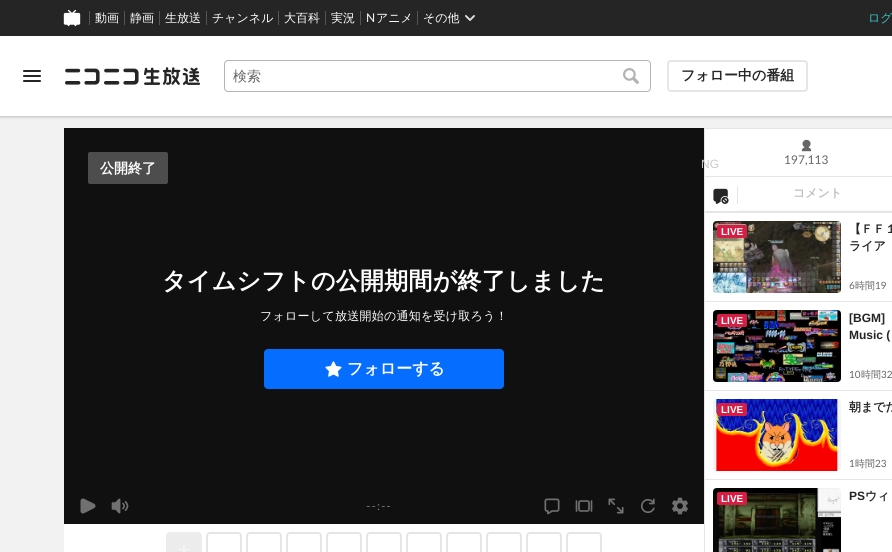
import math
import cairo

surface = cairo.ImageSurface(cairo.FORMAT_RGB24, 892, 552)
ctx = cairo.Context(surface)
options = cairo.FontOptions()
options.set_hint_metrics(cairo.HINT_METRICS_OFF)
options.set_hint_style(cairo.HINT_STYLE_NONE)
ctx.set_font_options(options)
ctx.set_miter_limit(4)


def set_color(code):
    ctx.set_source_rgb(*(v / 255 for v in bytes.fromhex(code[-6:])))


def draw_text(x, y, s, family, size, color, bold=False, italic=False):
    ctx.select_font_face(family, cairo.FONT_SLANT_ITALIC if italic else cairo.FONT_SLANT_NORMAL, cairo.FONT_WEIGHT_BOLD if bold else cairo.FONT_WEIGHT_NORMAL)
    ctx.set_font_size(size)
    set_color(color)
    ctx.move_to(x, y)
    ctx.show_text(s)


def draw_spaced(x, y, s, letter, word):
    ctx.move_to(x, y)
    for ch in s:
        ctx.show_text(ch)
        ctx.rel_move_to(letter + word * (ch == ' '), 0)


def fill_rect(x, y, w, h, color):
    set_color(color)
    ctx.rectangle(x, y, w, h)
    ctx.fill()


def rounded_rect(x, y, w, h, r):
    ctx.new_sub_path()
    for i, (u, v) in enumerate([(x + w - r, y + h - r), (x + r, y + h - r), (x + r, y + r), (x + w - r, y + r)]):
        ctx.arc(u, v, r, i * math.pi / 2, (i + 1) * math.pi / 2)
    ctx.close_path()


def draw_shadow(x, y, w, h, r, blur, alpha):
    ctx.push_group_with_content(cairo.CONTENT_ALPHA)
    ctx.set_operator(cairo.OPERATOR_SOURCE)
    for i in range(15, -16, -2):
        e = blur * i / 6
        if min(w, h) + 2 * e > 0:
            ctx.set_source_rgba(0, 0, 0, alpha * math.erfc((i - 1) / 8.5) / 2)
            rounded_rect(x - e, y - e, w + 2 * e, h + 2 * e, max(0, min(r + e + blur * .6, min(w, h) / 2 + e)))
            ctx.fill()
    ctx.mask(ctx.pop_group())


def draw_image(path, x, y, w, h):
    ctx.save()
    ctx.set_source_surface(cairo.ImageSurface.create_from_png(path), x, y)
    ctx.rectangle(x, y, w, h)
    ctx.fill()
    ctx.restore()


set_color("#f2f2f2")
ctx.paint()
set_color("#1a1a1a")
draw_shadow(0, 37, 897, 80, 0, 1.5, 0.25)
fill_rect(0, 0, 892, 36, "#252525")
draw_image("assets/img1.png", 63, 9, 18, 18)
fill_rect(89, 11, 1, 14, "#555555")
draw_text(95, 22, "動画", "WenQuanYi Zen Hei Medium", 12, "#ffffff")
fill_rect(124, 11, 1, 14, "#555555")
draw_text(130, 22, "静画", "WenQuanYi Zen Hei Medium", 12, "#ffffff")
fill_rect(159, 11, 1, 14, "#555555")
draw_text(165, 22, "生放送", "WenQuanYi Zen Hei Medium", 12, "#ffffff")
fill_rect(206, 11, 1, 14, "#555555")
draw_text(212, 22, "チャンネル", "WenQuanYi Zen Hei Medium", 12, "#ffffff")
fill_rect(278, 11, 1, 14, "#555555")
draw_text(284, 22, "大百科", "WenQuanYi Zen Hei Medium", 12, "#ffffff")
fill_rect(325, 11, 1, 14, "#555555")
draw_text(331, 22, "実況", "WenQuanYi Zen Hei Medium", 12, "#ffffff")
fill_rect(360, 11, 1, 14, "#555555")
draw_text(366, 22, "N", "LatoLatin", 12, "#ffffff")
draw_text(376, 22, "アニメ", "WenQuanYi Zen Hei Medium", 12, "#ffffff")
fill_rect(417, 11, 1, 14, "#555555")
draw_text(423, 22, "その他", "WenQuanYi Zen Hei Medium", 12, "#ffffff")
draw_image("assets/img2.png", 465, 15, 10, 6)
draw_text(868, 22, "ログ", "WenQuanYi Zen Hei Medium", 12, "#39c4c1")
fill_rect(0, 36, 892, 80, "#ffffff")
draw_image("assets/img3.png", 23, 70, 18, 12)
draw_image("assets/img4.png", 65, 67, 135, 18)
rounded_rect(224.5, 60.5, 426, 31, 3.5)
set_color("#b3b3b3")
ctx.set_line_width(1)
ctx.stroke()
draw_text(233, 81, "検索", "WenQuanYi Zen Hei Medium", 14, "#666666")
draw_image("assets/img5.png", 623, 68, 16, 16)
rounded_rect(668, 61, 139, 30, 3)
set_color("#e6e6e6")
ctx.set_line_width(2)
ctx.stroke()
draw_text(681, 80, "フォロー中の番組", "WenQuanYi Zen Hei", 14, "#252525", bold=True)
fill_rect(64, 128, 640, 396, "#101010")
set_color("#4d4d4d")
rounded_rect(88, 152, 80, 32, 2)
ctx.fill()
draw_text(100, 173, "公開終了", "WenQuanYi Zen Hei", 14, "#ffffff", bold=True)
ctx.set_font_size(24)
draw_spaced(162, 289, "タイムシフトの公開期間が終了しました", 0.25, 0)
ctx.select_font_face("WenQuanYi Zen Hei Medium")
ctx.set_font_size(12)
draw_spaced(260, 320, "フォローして放送開始の通知を受け取ろう！", 0.25, 0)
set_color("#056dff")
rounded_rect(264, 349, 240, 40, 4)
ctx.fill()
draw_image("assets/img6.png", 325, 361, 17, 16)
draw_text(347, 374, "フォローする", "WenQuanYi Zen Hei", 16, "#ffffff", bold=True)
draw_image("assets/img7.png", 80, 498, 16, 16)
draw_image("assets/img8.png", 111, 498, 18, 16)
ctx.select_font_face("LatoLatin")
ctx.set_font_size(12)
set_color("#767676")
draw_spaced(366, 510, "--:--", 1, 0)
draw_image("assets/img9.png", 544, 498, 16, 17)
draw_image("assets/img10.png", 575, 500, 18, 12)
draw_image("assets/img11.png", 608, 498, 16, 16)
draw_image("assets/img12.png", 640, 498, 15, 16)
draw_image("assets/img13.png", 672, 497, 16, 18)
fill_rect(64, 524, 640, 28, "#ffffff")
set_color("#ececec")
rounded_rect(166, 532, 36, 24, 4)
ctx.fill()
draw_image("assets/img14.png", 179, 545, 10, 7)
rounded_rect(207, 533, 34, 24, 3)
set_color("#e6e6e6")
ctx.stroke()
rounded_rect(247, 533, 34, 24, 3)
ctx.stroke()
rounded_rect(287, 533, 34, 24, 3)
ctx.stroke()
rounded_rect(327, 533, 34, 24, 3)
ctx.stroke()
rounded_rect(367, 533, 34, 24, 3)
ctx.stroke()
rounded_rect(407, 533, 34, 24, 3)
ctx.stroke()
rounded_rect(447, 533, 34, 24, 3)
ctx.stroke()
rounded_rect(487, 533, 34, 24, 3)
ctx.stroke()
rounded_rect(527, 533, 34, 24, 3)
ctx.stroke()
rounded_rect(567, 533, 34, 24, 3)
ctx.stroke()
fill_rect(705, 129, 187, 423, "#ffffff")
fill_rect(738, 210, 154, 1, "#f8f8f8")
ctx.rectangle(704.5, 128.5, 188, 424)
set_color("#e6e6e6")
ctx.set_line_width(1)
ctx.stroke()
fill_rect(705, 176, 187, 1, "#e6e6e6")
draw_image("assets/img15.png", 801, 139, 11, 13)
draw_text(784, 164, "197,113", "LatoLatin", 12, "#666666")
draw_text(701, 168, "NG", "Liberation Sans", 12, "#cacaca")
draw_image("assets/img16.png", 713, 188, 16, 16)
fill_rect(737, 186, 1, 18, "#e6e6e6")
draw_text(793, 197, "コメント", "WenQuanYi Zen Hei", 12, "#bebebe", bold=True)
fill_rect(705, 211, 187, 2, "#e6e6e6")
fill_rect(705, 301, 187, 1, "#e6e6e6")
draw_image("assets/img17.png", 713, 221, 128, 72)
set_color("#d71d43")
rounded_rect(717, 225, 30, 13, 2)
ctx.fill()
draw_text(721, 235, "LIVE", "Liberation Sans", 10, "#ffffff", bold=True)
draw_text(849, 233, "【ＦＦ１", "WenQuanYi Zen Hei", 12, "#252525", bold=True)
draw_text(849, 250, "ライア", "WenQuanYi Zen Hei", 12, "#252525", bold=True)
draw_text(849, 289, "6", "LatoLatin", 10, "#666666")
draw_text(855, 289, "時間", "WenQuanYi Zen Hei Medium", 10, "#666666")
draw_text(875, 289, "19", "LatoLatin", 10, "#666666")
fill_rect(705, 390, 187, 1, "#e6e6e6")
draw_image("assets/img18.png", 713, 310, 128, 72)
set_color("#d71d43")
rounded_rect(717, 314, 30, 13, 2)
ctx.fill()
draw_text(721, 324, "LIVE", "Liberation Sans", 10, "#ffffff", bold=True)
draw_text(849, 322, "[BGM]", "Liberation Sans", 12, "#252525", bold=True)
draw_text(849, 339, "Music (", "Liberation Sans", 12, "#252525", bold=True)
draw_text(849, 378, "10", "LatoLatin", 10, "#666666")
draw_text(861, 378, "時間", "WenQuanYi Zen Hei Medium", 10, "#666666")
draw_text(881, 378, "32", "LatoLatin", 10, "#666666")
fill_rect(705, 479, 187, 1, "#e6e6e6")
set_color("#f4f4f4")
rounded_rect(713, 399, 128, 72, 4)
ctx.fill()
draw_image("assets/img19.png", 716, 399, 122, 72)
set_color("#d71d43")
rounded_rect(717, 403, 30, 13, 2)
ctx.fill()
draw_text(721, 413, "LIVE", "Liberation Sans", 10, "#ffffff", bold=True)
draw_text(849, 411, "朝までだ", "WenQuanYi Zen Hei", 12, "#252525", bold=True)
draw_text(849, 467, "1", "LatoLatin", 10, "#666666")
draw_text(855, 467, "時間", "WenQuanYi Zen Hei Medium", 10, "#666666")
draw_text(875, 467, "23", "LatoLatin", 10, "#666666")
draw_image("assets/img20.png", 713, 488, 128, 64)
set_color("#d71d43")
rounded_rect(717, 492, 30, 13, 2)
ctx.fill()
draw_text(721, 502, "LIVE", "Liberation Sans", 10, "#ffffff", bold=True)
draw_text(849, 500, "PS", "Liberation Sans", 12, "#252525", bold=True)
draw_text(865, 500, "ウィ", "WenQuanYi Zen Hei", 12, "#252525", bold=True)
surface.write_to_png("output.png")
